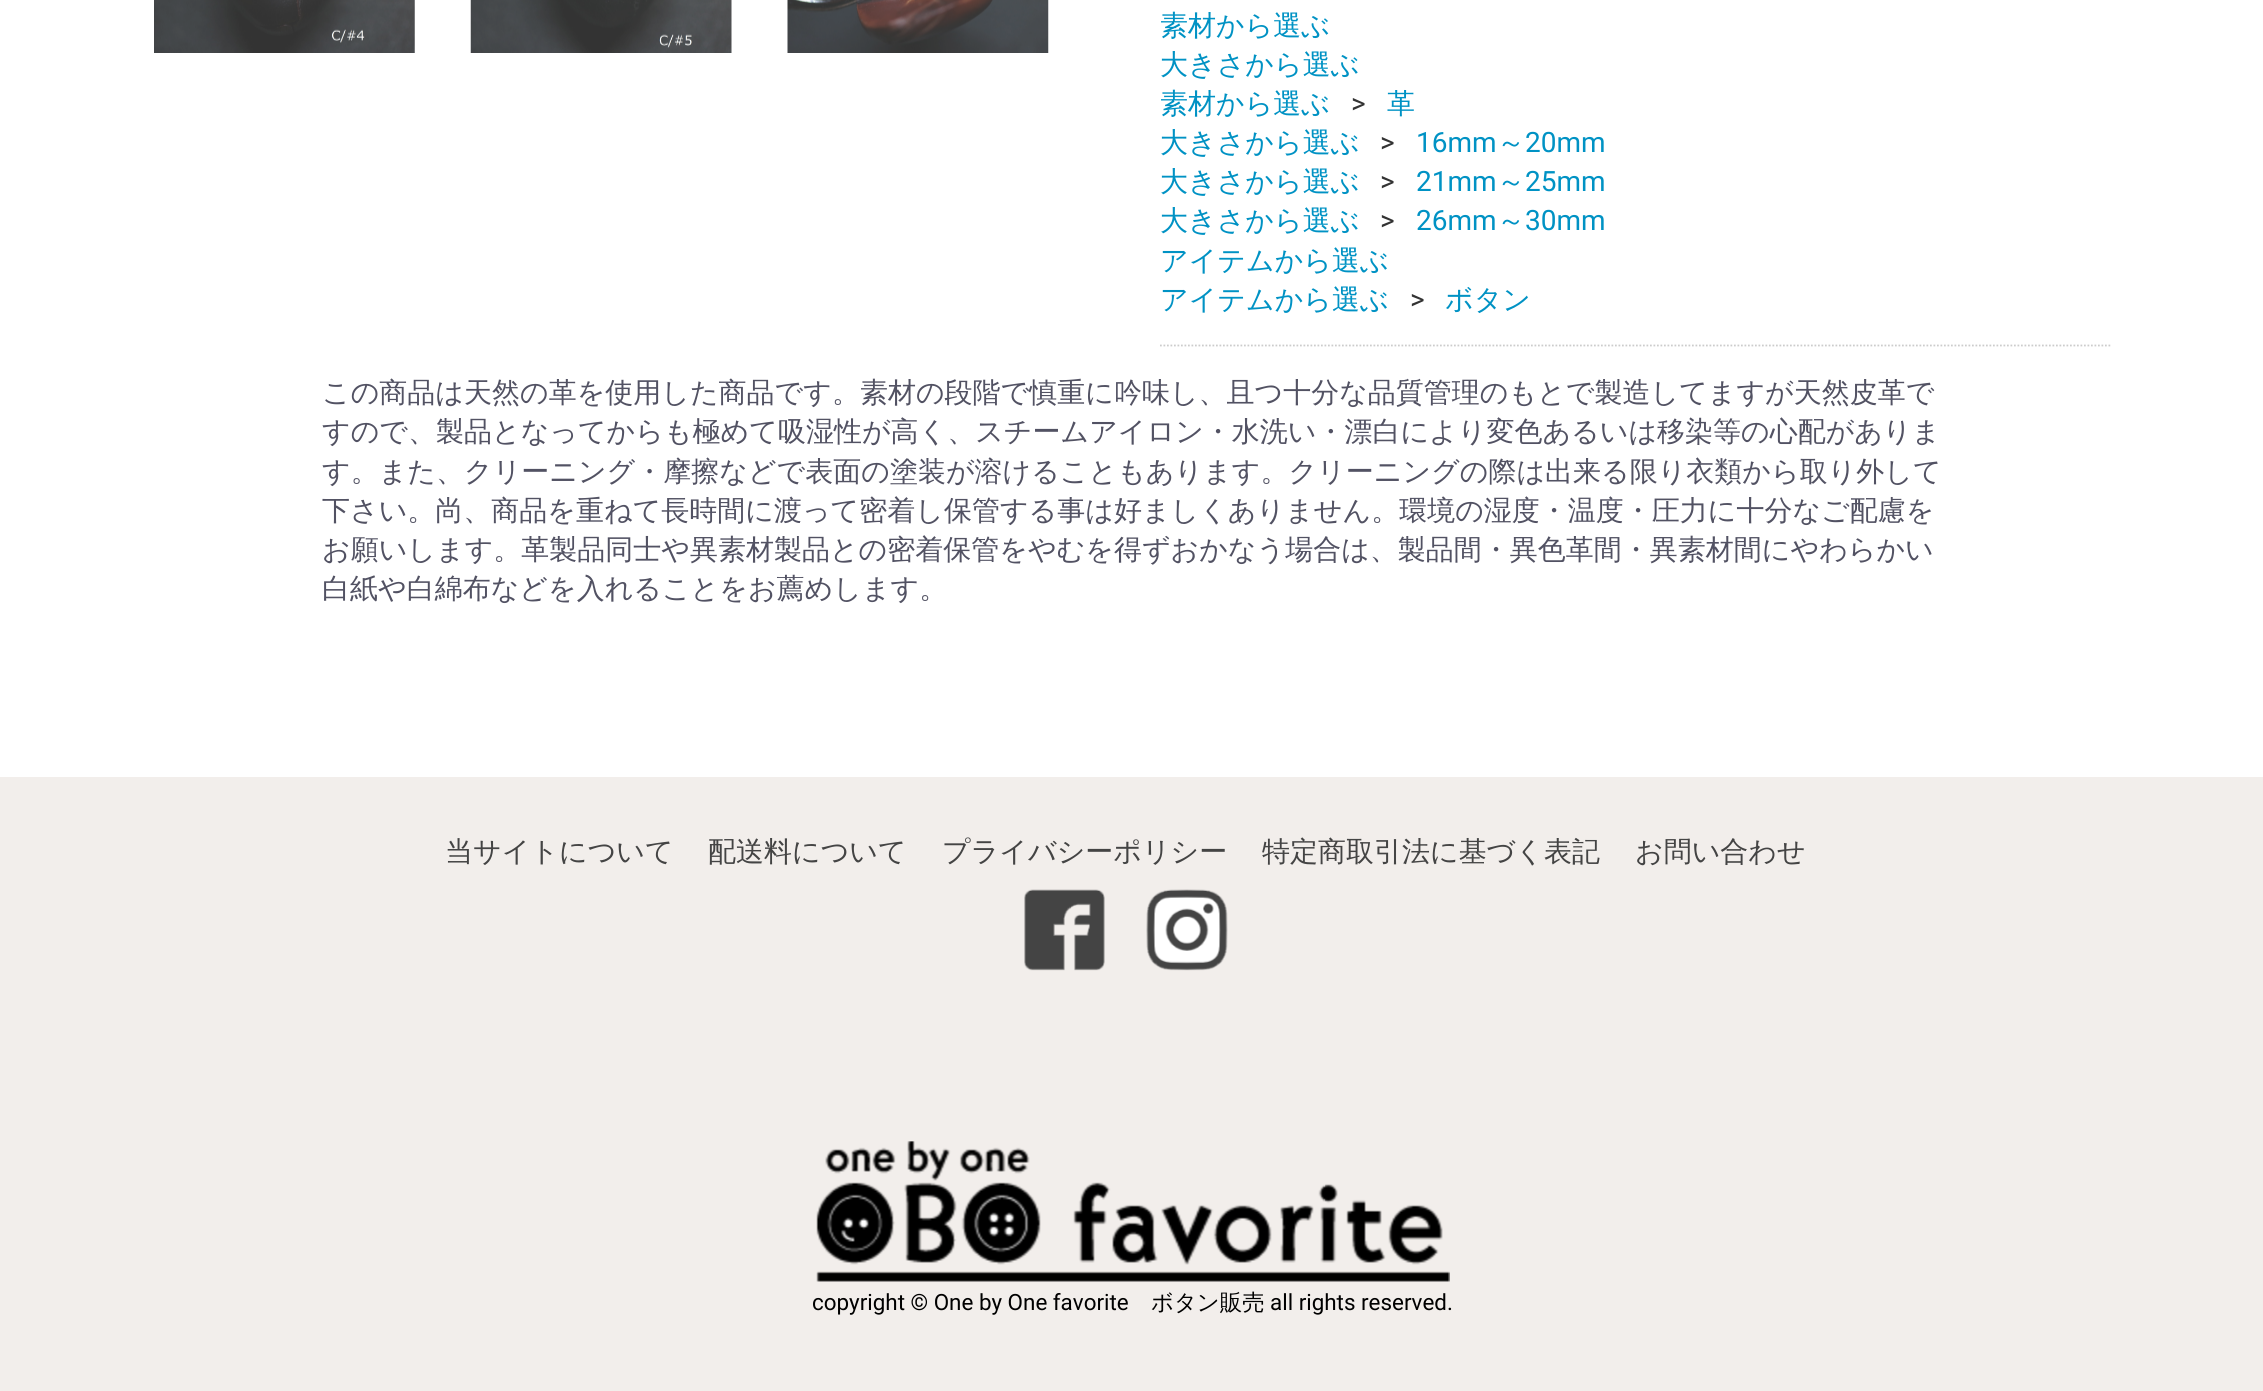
import math
import cairo

surface = cairo.ImageSurface(cairo.FORMAT_RGB24, 2263, 1391)
ctx = cairo.Context(surface)
options = cairo.FontOptions()
options.set_hint_metrics(cairo.HINT_METRICS_OFF)
options.set_hint_style(cairo.HINT_STYLE_NONE)
ctx.set_font_options(options)
ctx.set_miter_limit(4)


def set_color(code):
    ctx.set_source_rgb(*(v / 255 for v in bytes.fromhex(code[-6:])))


def draw_text(x, y, s, family, size, color, bold=False, italic=False):
    ctx.select_font_face(family, cairo.FONT_SLANT_ITALIC if italic else cairo.FONT_SLANT_NORMAL, cairo.FONT_WEIGHT_BOLD if bold else cairo.FONT_WEIGHT_NORMAL)
    ctx.set_font_size(size)
    set_color(color)
    ctx.move_to(x, y)
    ctx.show_text(s)


def fill_rect(x, y, w, h, color):
    set_color(color)
    ctx.rectangle(x, y, w, h)
    ctx.fill()


def draw_image(path, x, y, w, h):
    ctx.save()
    ctx.set_source_surface(cairo.ImageSurface.create_from_png(path), x, y)
    ctx.rectangle(x, y, w, h)
    ctx.fill()
    ctx.restore()


set_color("#ffffff")
ctx.paint()
draw_image("assets/img1.png", 154, 0, 261, 53)
draw_image("assets/img2.png", 470, 0, 262, 53)
draw_image("assets/img3.png", 787, 0, 262, 53)
ctx.new_path()
ctx.move_to(1160, 345.5)
ctx.line_to(2110.5, 345.5)
set_color("#cccccc")
ctx.set_line_width(1.8)
ctx.set_dash([1.75, 1.75])
ctx.stroke()
draw_text(1160, 35, "素材から選ぶ", "WenQuanYi Zen Hei Medium", 28, "#0092c4")
draw_text(1160, 74, "大きさから選ぶ", "WenQuanYi Zen Hei Medium", 28, "#0092c4")
draw_text(1160, 113, "素材から選ぶ", "WenQuanYi Zen Hei Medium", 28, "#0092c4")
draw_text(1351, 113, ">", "Roboto", 28, "#333333")
draw_text(1387, 113, "革", "WenQuanYi Zen Hei Medium", 28, "#0092c4")
draw_text(1160, 152, "大きさから選ぶ", "WenQuanYi Zen Hei Medium", 28, "#0092c4")
draw_text(1380, 152, ">", "Roboto", 28, "#333333")
draw_text(1416, 152, "16mm", "Roboto", 28, "#0092c4")
draw_text(1497, 152, "～", "WenQuanYi Zen Hei Medium", 28, "#0092c4")
draw_text(1525, 152, "20mm", "Roboto", 28, "#0092c4")
draw_text(1160, 191, "大きさから選ぶ", "WenQuanYi Zen Hei Medium", 28, "#0092c4")
draw_text(1380, 191, ">", "Roboto", 28, "#333333")
draw_text(1416, 191, "21mm", "Roboto", 28, "#0092c4")
draw_text(1497, 191, "～", "WenQuanYi Zen Hei Medium", 28, "#0092c4")
draw_text(1525, 191, "25mm", "Roboto", 28, "#0092c4")
draw_text(1160, 230, "大きさから選ぶ", "WenQuanYi Zen Hei Medium", 28, "#0092c4")
draw_text(1380, 230, ">", "Roboto", 28, "#333333")
draw_text(1416, 230, "26mm", "Roboto", 28, "#0092c4")
draw_text(1497, 230, "～", "WenQuanYi Zen Hei Medium", 28, "#0092c4")
draw_text(1525, 230, "30mm", "Roboto", 28, "#0092c4")
draw_text(1160, 270, "アイテムから選ぶ", "WenQuanYi Zen Hei Medium", 28, "#0092c4")
draw_text(1160, 309, "アイテムから選ぶ", "WenQuanYi Zen Hei Medium", 28, "#0092c4")
draw_text(1410, 309, ">", "Roboto", 28, "#333333")
draw_text(1445, 309, "ボタン", "WenQuanYi Zen Hei Medium", 28, "#0092c4")
draw_text(322, 402, "この商品は天然の革を使用した商品です。素材の段階で慎重に吟味し、且つ十分な品質管理のもとで製造してますが天然皮革で", "WenQuanYi Zen Hei Medium", 28, "#525263")
draw_text(322, 441, "すので、製品となってからも極めて吸湿性が高く、スチームアイロン・水洗い・漂白により変色あるいは移染等の心配がありま", "WenQuanYi Zen Hei Medium", 28, "#525263")
draw_text(322, 481, "す。また、クリーニング・摩擦などで表面の塗装が溶けることもあります。クリーニングの際は出来る限り衣類から取り外して", "WenQuanYi Zen Hei Medium", 28, "#525263")
draw_text(322, 520, "下さい。尚、商品を重ねて長時間に渡って密着し保管する事は好ましくありません。環境の湿度・温度・圧力に十分なご配慮を", "WenQuanYi Zen Hei Medium", 28, "#525263")
draw_text(322, 559, "お願いします。革製品同士や異素材製品との密着保管をやむを得ずおかなう場合は、製品間・異色革間・異素材間にやわらかい", "WenQuanYi Zen Hei Medium", 28, "#525263")
draw_text(322, 598, "白紙や白綿布などを入れることをお薦めします。", "WenQuanYi Zen Hei Medium", 28, "#525263")
fill_rect(0, 777, 2263, 614, "#f2eeeb")
draw_text(445, 861, "当サイトについて", "WenQuanYi Zen Hei Medium", 28, "#444444")
draw_text(708, 861, "配送料について", "WenQuanYi Zen Hei Medium", 28, "#444444")
draw_text(942, 861, "プライバシーポリシー", "WenQuanYi Zen Hei Medium", 28, "#444444")
draw_text(1262, 861, "特定商取引法に基づく表記", "WenQuanYi Zen Hei Medium", 28, "#444444")
draw_text(1635, 861, "お問い合わせ", "WenQuanYi Zen Hei Medium", 28, "#444444")
draw_image("assets/img4.png", 1024, 889, 81, 82)
draw_image("assets/img5.png", 1146, 889, 82, 82)
draw_image("assets/img6.png", 816, 1141, 634, 141)
draw_text(812, 1310, "copyright © One by One favorite", "Roboto", 22.4, "#000000")
draw_text(1151, 1310, "ボタン販売", "WenQuanYi Zen Hei Medium", 22.4, "#000000")
draw_text(1270, 1310, "all rights reserved.", "Roboto", 22.4, "#000000")
surface.write_to_png("output.png")
